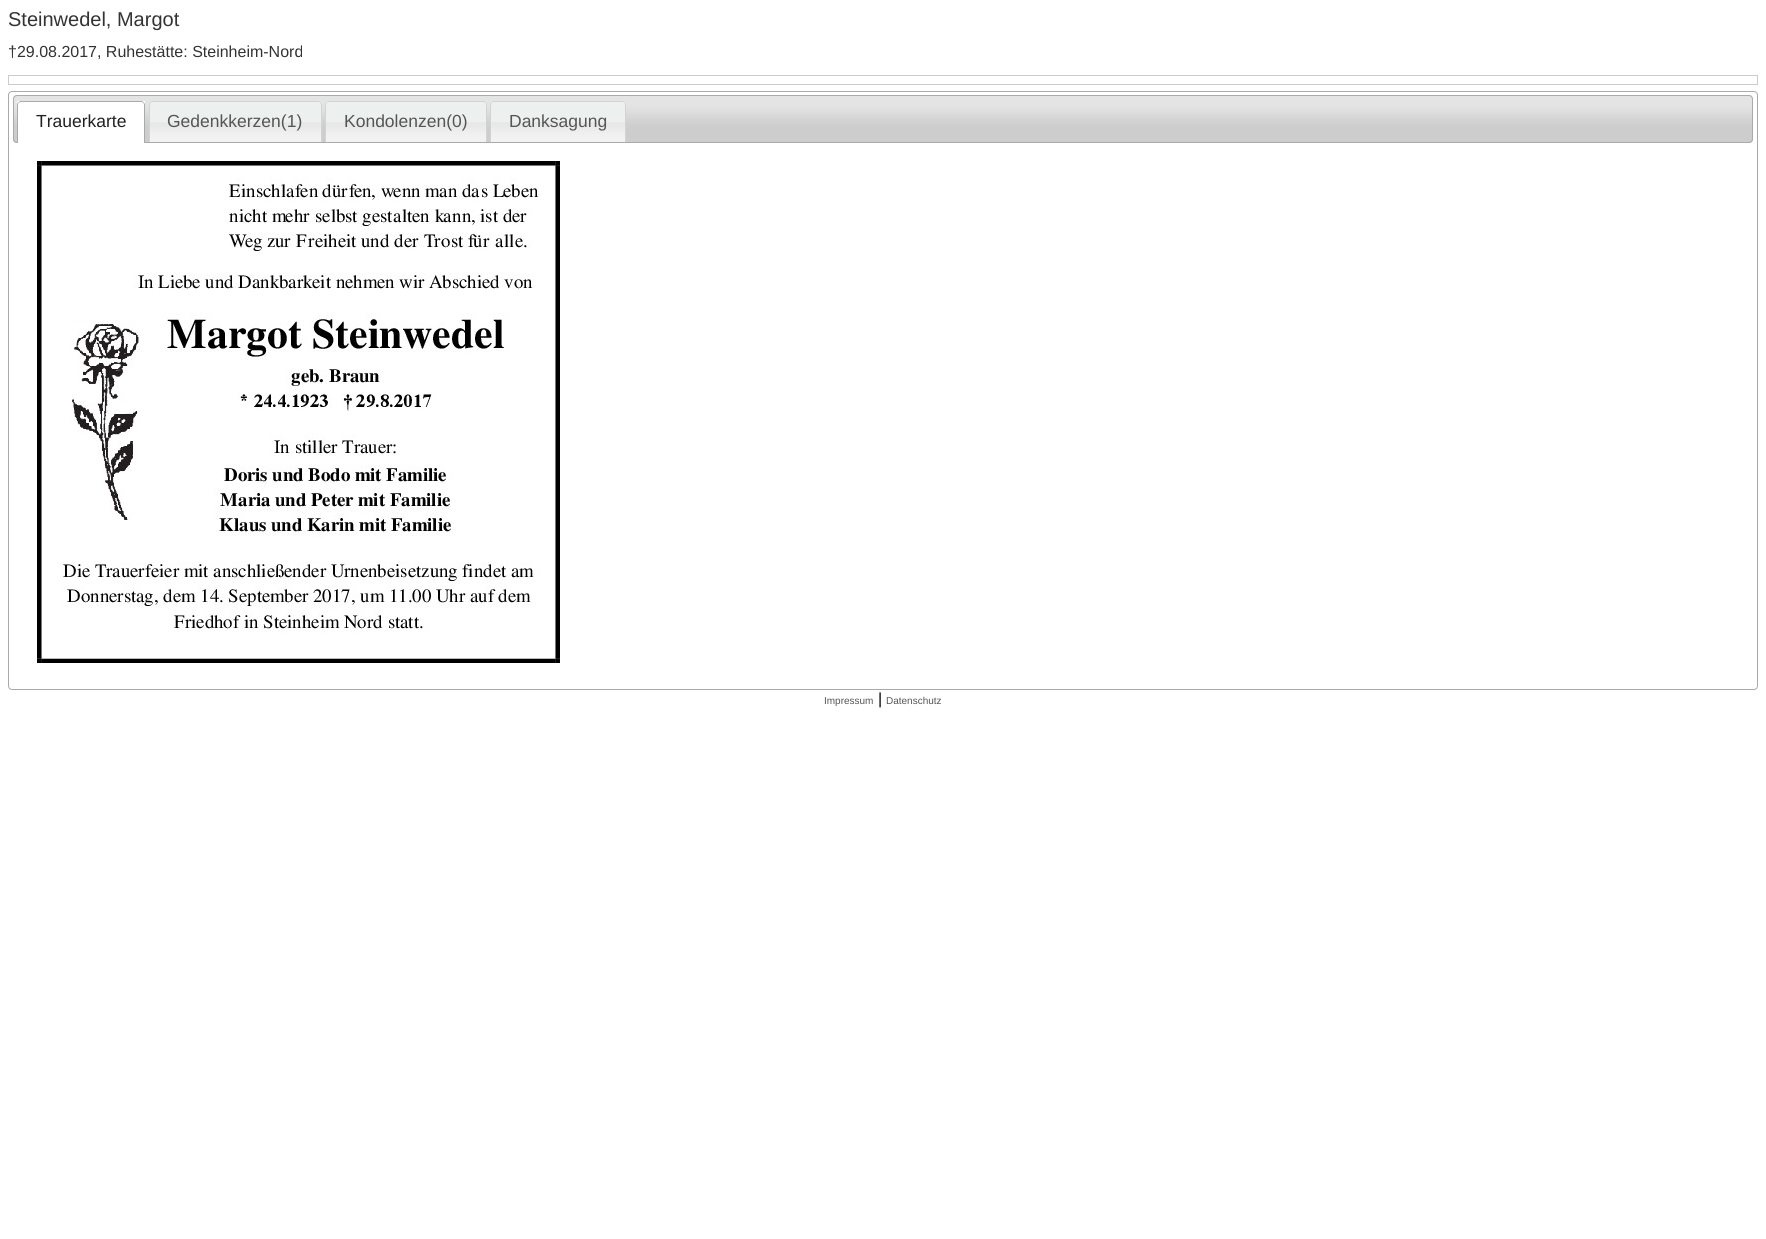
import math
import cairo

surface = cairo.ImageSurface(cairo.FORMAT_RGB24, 1766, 1239)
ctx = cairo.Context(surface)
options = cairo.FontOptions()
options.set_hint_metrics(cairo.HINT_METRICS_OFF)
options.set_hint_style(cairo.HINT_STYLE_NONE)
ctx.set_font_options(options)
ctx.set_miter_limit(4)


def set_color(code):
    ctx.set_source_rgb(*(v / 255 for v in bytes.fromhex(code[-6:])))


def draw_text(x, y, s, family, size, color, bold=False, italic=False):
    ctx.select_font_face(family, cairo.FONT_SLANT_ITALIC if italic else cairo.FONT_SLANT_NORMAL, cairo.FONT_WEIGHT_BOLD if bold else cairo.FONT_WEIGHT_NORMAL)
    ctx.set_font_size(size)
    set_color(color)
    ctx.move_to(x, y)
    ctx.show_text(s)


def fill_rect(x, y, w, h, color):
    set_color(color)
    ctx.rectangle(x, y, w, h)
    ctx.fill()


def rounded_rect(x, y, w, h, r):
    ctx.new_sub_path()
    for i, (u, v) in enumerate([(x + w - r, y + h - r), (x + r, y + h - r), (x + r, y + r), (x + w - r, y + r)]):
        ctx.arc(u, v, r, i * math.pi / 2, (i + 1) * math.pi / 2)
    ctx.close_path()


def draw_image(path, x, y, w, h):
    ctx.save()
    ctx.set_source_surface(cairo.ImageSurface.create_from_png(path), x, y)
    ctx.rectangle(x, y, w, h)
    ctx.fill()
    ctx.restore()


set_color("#ffffff")
ctx.paint()
draw_text(8, 26, "Steinwedel, Margot", "Liberation Sans", 20, "#333333")
draw_text(8, 57, "†29.08.2017, Ruhestätte: Steinheim-Nord", "Liberation Sans", 16, "#333333")
ctx.rectangle(8.5, 75.5, 1749, 9)
set_color("#cccccc")
ctx.set_line_width(1)
ctx.stroke()
rounded_rect(8.5, 91.5, 1749, 598, 3.5)
set_color("#aaaaaa")
ctx.stroke()
draw_image("assets/img1.png", 13, 95, 1740, 48)
rounded_rect(13.5, 95.5, 1739, 47, 3.5)
ctx.stroke()
fill_rect(17, 101, 128, 42, "#ffffff")
set_color("#aaaaaa")
ctx.set_fill_rule(cairo.FILL_RULE_EVEN_ODD)
ctx.new_path()
ctx.move_to(21, 101)
ctx.line_to(141, 101)
ctx.curve_to(143, 101, 145, 103, 145, 105)
ctx.line_to(145, 143)
ctx.line_to(17, 143)
ctx.line_to(17, 105)
ctx.curve_to(17, 103, 19, 101, 21, 101)
ctx.close_path()
ctx.move_to(21, 102)
ctx.line_to(141, 102)
ctx.curve_to(143, 102, 144, 103, 144, 105)
ctx.line_to(144, 143)
ctx.line_to(18, 143)
ctx.line_to(18, 105)
ctx.curve_to(18, 103, 19, 102, 21, 102)
ctx.close_path()
ctx.fill()
draw_text(36, 127, "Trauerkarte", "Liberation Sans", 17.5, "#212121")
draw_image("assets/img2.png", 149, 101, 173, 41)
set_color("#d3d3d3")
ctx.new_path()
ctx.move_to(153, 101)
ctx.line_to(318, 101)
ctx.curve_to(320, 101, 322, 103, 322, 105)
ctx.line_to(322, 142)
ctx.line_to(149, 142)
ctx.line_to(149, 105)
ctx.curve_to(149, 103, 151, 101, 153, 101)
ctx.close_path()
ctx.move_to(153, 102)
ctx.line_to(318, 102)
ctx.curve_to(320, 102, 321, 103, 321, 105)
ctx.line_to(321, 142)
ctx.line_to(150, 142)
ctx.line_to(150, 105)
ctx.curve_to(150, 103, 151, 102, 153, 102)
ctx.close_path()
ctx.fill()
draw_text(167, 127, "Gedenkkerzen(1)", "Liberation Sans", 17.5, "#555555")
draw_image("assets/img3.png", 325, 101, 162, 41)
set_color("#d3d3d3")
ctx.new_path()
ctx.move_to(329, 101)
ctx.line_to(483, 101)
ctx.curve_to(485, 101, 487, 103, 487, 105)
ctx.line_to(487, 142)
ctx.line_to(325, 142)
ctx.line_to(325, 105)
ctx.curve_to(325, 103, 327, 101, 329, 101)
ctx.close_path()
ctx.move_to(329, 102)
ctx.line_to(483, 102)
ctx.curve_to(485, 102, 486, 103, 486, 105)
ctx.line_to(486, 142)
ctx.line_to(326, 142)
ctx.line_to(326, 105)
ctx.curve_to(326, 103, 327, 102, 329, 102)
ctx.close_path()
ctx.fill()
draw_text(344, 127, "Kondolenzen(0)", "Liberation Sans", 17.5, "#555555")
draw_image("assets/img4.png", 490, 101, 136, 41)
set_color("#d3d3d3")
ctx.new_path()
ctx.move_to(494, 101)
ctx.line_to(622, 101)
ctx.curve_to(624, 101, 626, 103, 626, 105)
ctx.line_to(626, 142)
ctx.line_to(490, 142)
ctx.line_to(490, 105)
ctx.curve_to(490, 103, 492, 101, 494, 101)
ctx.close_path()
ctx.move_to(494, 102)
ctx.line_to(622, 102)
ctx.curve_to(624, 102, 625, 103, 625, 105)
ctx.line_to(625, 142)
ctx.line_to(491, 142)
ctx.line_to(491, 105)
ctx.curve_to(491, 103, 492, 102, 494, 102)
ctx.close_path()
ctx.fill()
draw_text(509, 127, "Danksagung", "Liberation Sans", 17.5, "#555555")
draw_image("assets/img5.png", 37, 161, 523, 502)
draw_text(824, 704, "Impressum", "Liberation Sans", 10, "#555555")
draw_text(878, 704, "|", "Liberation Sans", 16, "#000000")
draw_text(886, 704, "Datenschutz", "Liberation Sans", 10, "#555555")
surface.write_to_png("output.png")
